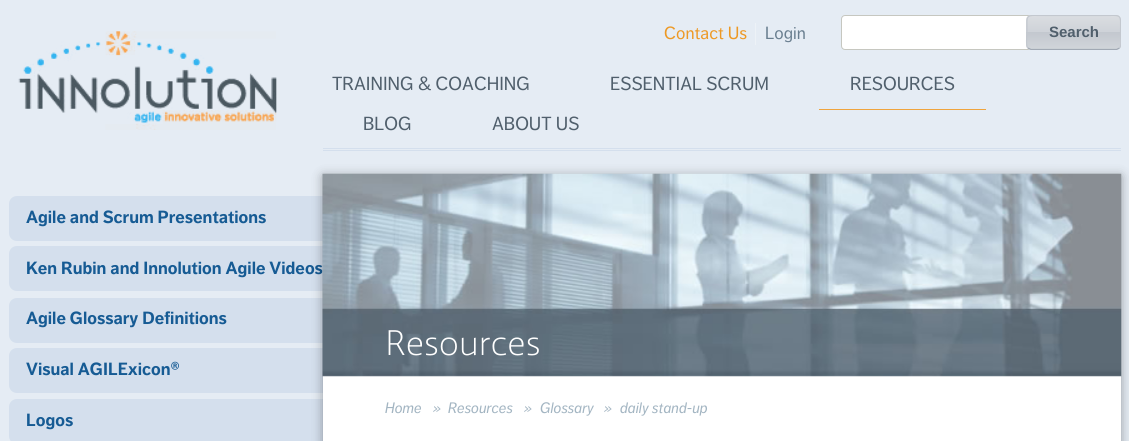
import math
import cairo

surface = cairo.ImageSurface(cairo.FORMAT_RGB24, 1129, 441)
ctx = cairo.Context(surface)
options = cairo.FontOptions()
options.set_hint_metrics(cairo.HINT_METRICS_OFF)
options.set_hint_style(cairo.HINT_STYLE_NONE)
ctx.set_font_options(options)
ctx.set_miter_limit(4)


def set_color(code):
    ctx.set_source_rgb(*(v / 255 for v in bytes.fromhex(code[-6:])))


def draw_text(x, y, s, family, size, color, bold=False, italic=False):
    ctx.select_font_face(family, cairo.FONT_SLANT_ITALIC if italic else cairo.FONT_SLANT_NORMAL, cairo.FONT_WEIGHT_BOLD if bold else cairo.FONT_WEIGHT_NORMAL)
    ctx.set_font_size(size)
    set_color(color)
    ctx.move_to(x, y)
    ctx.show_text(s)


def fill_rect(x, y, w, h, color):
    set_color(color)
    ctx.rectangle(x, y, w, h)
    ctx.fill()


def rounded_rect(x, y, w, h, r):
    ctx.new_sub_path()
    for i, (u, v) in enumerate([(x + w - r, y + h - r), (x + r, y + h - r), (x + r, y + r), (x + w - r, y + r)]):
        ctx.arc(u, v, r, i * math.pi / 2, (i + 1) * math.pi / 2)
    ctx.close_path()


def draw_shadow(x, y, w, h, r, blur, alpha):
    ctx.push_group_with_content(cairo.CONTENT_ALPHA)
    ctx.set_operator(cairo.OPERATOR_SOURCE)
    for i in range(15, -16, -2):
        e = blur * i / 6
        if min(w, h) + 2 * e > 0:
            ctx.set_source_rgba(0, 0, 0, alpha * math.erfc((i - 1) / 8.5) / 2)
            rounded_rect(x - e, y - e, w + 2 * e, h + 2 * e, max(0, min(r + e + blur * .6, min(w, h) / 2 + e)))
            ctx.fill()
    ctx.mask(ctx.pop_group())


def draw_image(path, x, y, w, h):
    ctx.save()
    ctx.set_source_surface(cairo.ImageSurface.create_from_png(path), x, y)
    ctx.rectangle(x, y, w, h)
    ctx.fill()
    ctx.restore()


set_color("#e5ecf4")
ctx.paint()
draw_image("assets/img1.png", 18, 31, 259, 99)
fill_rect(323, 148, 798, 1, "#d4dfed")
fill_rect(323, 150, 798, 1, "#d4dfed")
fill_rect(755, 23, 1, 22, "#edf2f7")
draw_text(664, 39, "Contact Us", "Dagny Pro", 17.5, "#ed9925")
draw_text(765, 39, "Login", "Dagny Pro", 17.5, "#6a7f90")
set_color("#ffffff")
rounded_rect(841.5, 15.5, 191, 34, 3.5)
ctx.fill_preserve()
set_color("#c6c7c0")
ctx.set_line_width(1)
ctx.stroke()
ctx.save()
rounded_rect(1026, 15, 95, 35, 5)
ctx.clip()
gradient = cairo.LinearGradient(1074, -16, 1074, 16)
gradient.add_color_stop_rgba(0, 0.855, 0.867, 0.882, 1)
gradient.add_color_stop_rgba(0.5, 0.808, 0.824, 0.847, 1)
gradient.add_color_stop_rgba(0.5, 0.765, 0.784, 0.812, 1)
gradient.add_color_stop_rgba(1, 0.82, 0.835, 0.855, 1)
ctx.set_source(gradient)
ctx.rectangle(1026, 15, 95, 1)
ctx.fill()
gradient = cairo.LinearGradient(1074, 16, 1074, 49)
gradient.add_color_stop_rgba(0, 0.855, 0.867, 0.882, 1)
gradient.add_color_stop_rgba(0.5, 0.808, 0.824, 0.847, 1)
gradient.add_color_stop_rgba(0.5, 0.765, 0.784, 0.812, 1)
gradient.add_color_stop_rgba(1, 0.82, 0.835, 0.855, 1)
ctx.set_source(gradient)
ctx.rectangle(1026, 16, 95, 33)
ctx.fill()
gradient = cairo.LinearGradient(1074, 49, 1074, 81)
gradient.add_color_stop_rgba(0, 0.855, 0.867, 0.882, 1)
gradient.add_color_stop_rgba(0.5, 0.808, 0.824, 0.847, 1)
gradient.add_color_stop_rgba(0.5, 0.765, 0.784, 0.812, 1)
gradient.add_color_stop_rgba(1, 0.82, 0.835, 0.855, 1)
ctx.set_source(gradient)
ctx.rectangle(1026, 49, 95, 1)
ctx.fill()
ctx.restore()
ctx.save()
ctx.rectangle(841, 15, 280, 35)
ctx.clip()
ctx.new_path()
ctx.move_to(1119.5, 48)
ctx.line_to(1116.5, 49.5)
ctx.line_to(1031, 49.5)
ctx.line_to(1028, 48)
set_color("#a1a9b4")
ctx.set_line_width(1.2)
ctx.stroke()
ctx.new_path()
ctx.move_to(1028, 48)
ctx.curve_to(1025.5, 45.5, 1027, 35.5, 1027, 32.5)
ctx.curve_to(1027, 13, 1024.5, 15.5, 1045.5, 15.5)
ctx.line_to(1102, 15.5)
ctx.curve_to(1123, 15.5, 1120.5, 13, 1120.5, 32.5)
ctx.curve_to(1120.5, 35.5, 1122, 45.5, 1119.5, 48)
set_color("#c3c8cf")
ctx.stroke()
ctx.restore()
draw_text(1049, 37, "Search", "Liberation Sans", 15, "#505f6c", bold=True)
draw_text(332, 90, "TRAINING & COACHING", "Dagny Pro", 18.75, "#505f6c")
draw_text(610, 90, "ESSENTIAL SCRUM", "Dagny Pro", 18.75, "#505f6c")
draw_text(850, 90, "RESOURCES", "Dagny Pro", 18.75, "#505f6c")
fill_rect(819, 109, 167, 1, "#efa43d")
draw_text(363, 130, "BLOG", "Dagny Pro", 18.75, "#505f6c")
draw_text(492, 130, "ABOUT US", "Dagny Pro", 18.75, "#505f6c")
set_color("#d4dfed")
ctx.new_path()
ctx.move_to(17, 196)
ctx.line_to(324, 196)
ctx.line_to(324, 241)
ctx.line_to(17, 241)
ctx.curve_to(12.5, 241, 9, 237.5, 9, 233)
ctx.line_to(9, 204)
ctx.curve_to(9, 199.5, 12.5, 196, 17, 196)
ctx.close_path()
ctx.fill()
draw_text(26, 223, "Agile and Scrum Presentations", "Dagny Pro", 17.5, "#165b94", bold=True)
set_color("#d4dfed")
ctx.new_path()
ctx.move_to(17, 246)
ctx.line_to(324, 246)
ctx.line_to(324, 291)
ctx.line_to(17, 291)
ctx.curve_to(12.5, 291, 9, 287.5, 9, 283)
ctx.line_to(9, 254)
ctx.curve_to(9, 249.5, 12.5, 246, 17, 246)
ctx.close_path()
ctx.fill()
draw_text(26, 274, "Ken Rubin and Innolution Agile Videos", "Dagny Pro", 17.5, "#165b94", bold=True)
set_color("#d4dfed")
ctx.new_path()
ctx.move_to(17, 298)
ctx.line_to(324, 298)
ctx.line_to(324, 343)
ctx.line_to(17, 343)
ctx.curve_to(12.5, 343, 9, 339.5, 9, 335)
ctx.line_to(9, 306)
ctx.curve_to(9, 301.5, 12.5, 298, 17, 298)
ctx.close_path()
ctx.fill()
draw_text(26, 324, "Agile Glossary Definitions", "Dagny Pro", 17.5, "#165b94", bold=True)
set_color("#d4dfed")
ctx.new_path()
ctx.move_to(17, 348)
ctx.line_to(324, 348)
ctx.line_to(324, 393)
ctx.line_to(17, 393)
ctx.curve_to(12.5, 393, 9, 389.5, 9, 385)
ctx.line_to(9, 356)
ctx.curve_to(9, 351.5, 12.5, 348, 17, 348)
ctx.close_path()
ctx.fill()
draw_text(26, 375, "Visual AGILExicon®", "Dagny Pro", 17.5, "#165b94", bold=True)
set_color("#d4dfed")
ctx.new_path()
ctx.move_to(17, 399)
ctx.line_to(324, 399)
ctx.line_to(324, 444)
ctx.line_to(17, 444)
ctx.curve_to(12.5, 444, 9, 440.5, 9, 436)
ctx.line_to(9, 407)
ctx.curve_to(9, 402.5, 12.5, 399, 17, 399)
ctx.close_path()
ctx.fill()
draw_text(26, 426, "Logos", "Dagny Pro", 17.5, "#165b94", bold=True)
set_color("#000000")
draw_shadow(323, 176, 798, 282, 0, 5.5, 0.35)
fill_rect(323, 376, 798, 65, "#ffffff")
draw_image("assets/img2.png", 322, 173, 800, 204)
draw_text(385, 355, "Resources", "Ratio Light", 37, "#ffffff")
draw_text(385, 413, "Home", "Dagny Pro", 15, "#a3b5c2", italic=True)
draw_text(433, 413, "»", "Dagny Pro", 15, "#a3b5c2", italic=True)
draw_text(448, 413, "Resources", "Dagny Pro", 15, "#a3b5c2", italic=True)
draw_text(524, 413, "»", "Dagny Pro", 15, "#a3b5c2", italic=True)
draw_text(540, 413, "Glossary", "Dagny Pro", 15, "#a3b5c2", italic=True)
draw_text(604, 413, "»", "Dagny Pro", 15, "#a3b5c2", italic=True)
draw_text(620, 413, "daily stand-up", "Dagny Pro", 15, "#a3b5c2", italic=True)
surface.write_to_png("output.png")
